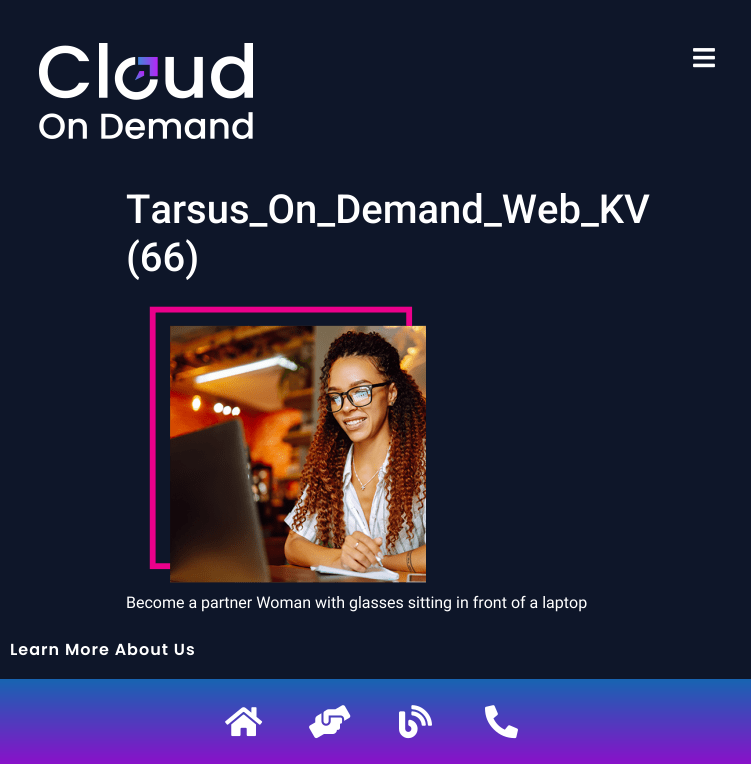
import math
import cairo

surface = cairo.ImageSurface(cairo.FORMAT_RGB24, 751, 764)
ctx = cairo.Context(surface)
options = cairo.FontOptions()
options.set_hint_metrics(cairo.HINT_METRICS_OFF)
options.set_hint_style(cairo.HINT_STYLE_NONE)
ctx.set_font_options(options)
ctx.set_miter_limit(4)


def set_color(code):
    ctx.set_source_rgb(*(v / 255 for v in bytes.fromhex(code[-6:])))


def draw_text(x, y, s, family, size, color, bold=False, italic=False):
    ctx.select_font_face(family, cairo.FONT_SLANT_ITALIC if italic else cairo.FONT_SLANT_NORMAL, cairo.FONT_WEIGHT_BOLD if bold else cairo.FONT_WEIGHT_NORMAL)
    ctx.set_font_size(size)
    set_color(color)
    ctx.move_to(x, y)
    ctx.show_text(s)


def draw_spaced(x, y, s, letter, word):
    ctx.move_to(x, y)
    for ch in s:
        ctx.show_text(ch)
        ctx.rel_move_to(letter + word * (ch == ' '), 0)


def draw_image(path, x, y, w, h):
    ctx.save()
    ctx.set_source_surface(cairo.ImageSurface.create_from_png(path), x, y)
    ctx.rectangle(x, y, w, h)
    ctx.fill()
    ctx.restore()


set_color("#0e1629")
ctx.paint()
draw_image("assets/img1.png", 39, 43, 214, 96)
draw_image("assets/img2.png", 693, 48, 22, 20)
draw_text(126, 223, "Tarsus_On_Demand_Web_KV", "Roboto Medium", 40, "#ffffff")
draw_text(126, 271, "(66)", "Roboto Medium", 40, "#ffffff")
draw_image("assets/img3.png", 149, 306, 277, 277)
draw_text(126, 608, "Become a partner Woman with glasses sitting in front of a laptop", "Roboto", 16, "#ffffff")
ctx.select_font_face("Poppins SemiBold")
draw_spaced(10, 655, "Learn More About Us", 1, 0)
gradient = cairo.LinearGradient(376, 679, 376, 764)
gradient.add_color_stop_rgba(0, 0.09, 0.392, 0.694, 1)
gradient.add_color_stop_rgba(1, 0.537, 0.067, 0.788, 1)
ctx.set_source(gradient)
ctx.rectangle(0, 679, 751, 85)
ctx.fill()
draw_image("assets/img4.png", 225, 707, 38, 30)
draw_image("assets/img5.png", 309, 705, 42, 34)
draw_image("assets/img6.png", 399, 705, 33, 34)
draw_image("assets/img7.png", 485, 705, 33, 34)
surface.write_to_png("output.png")
